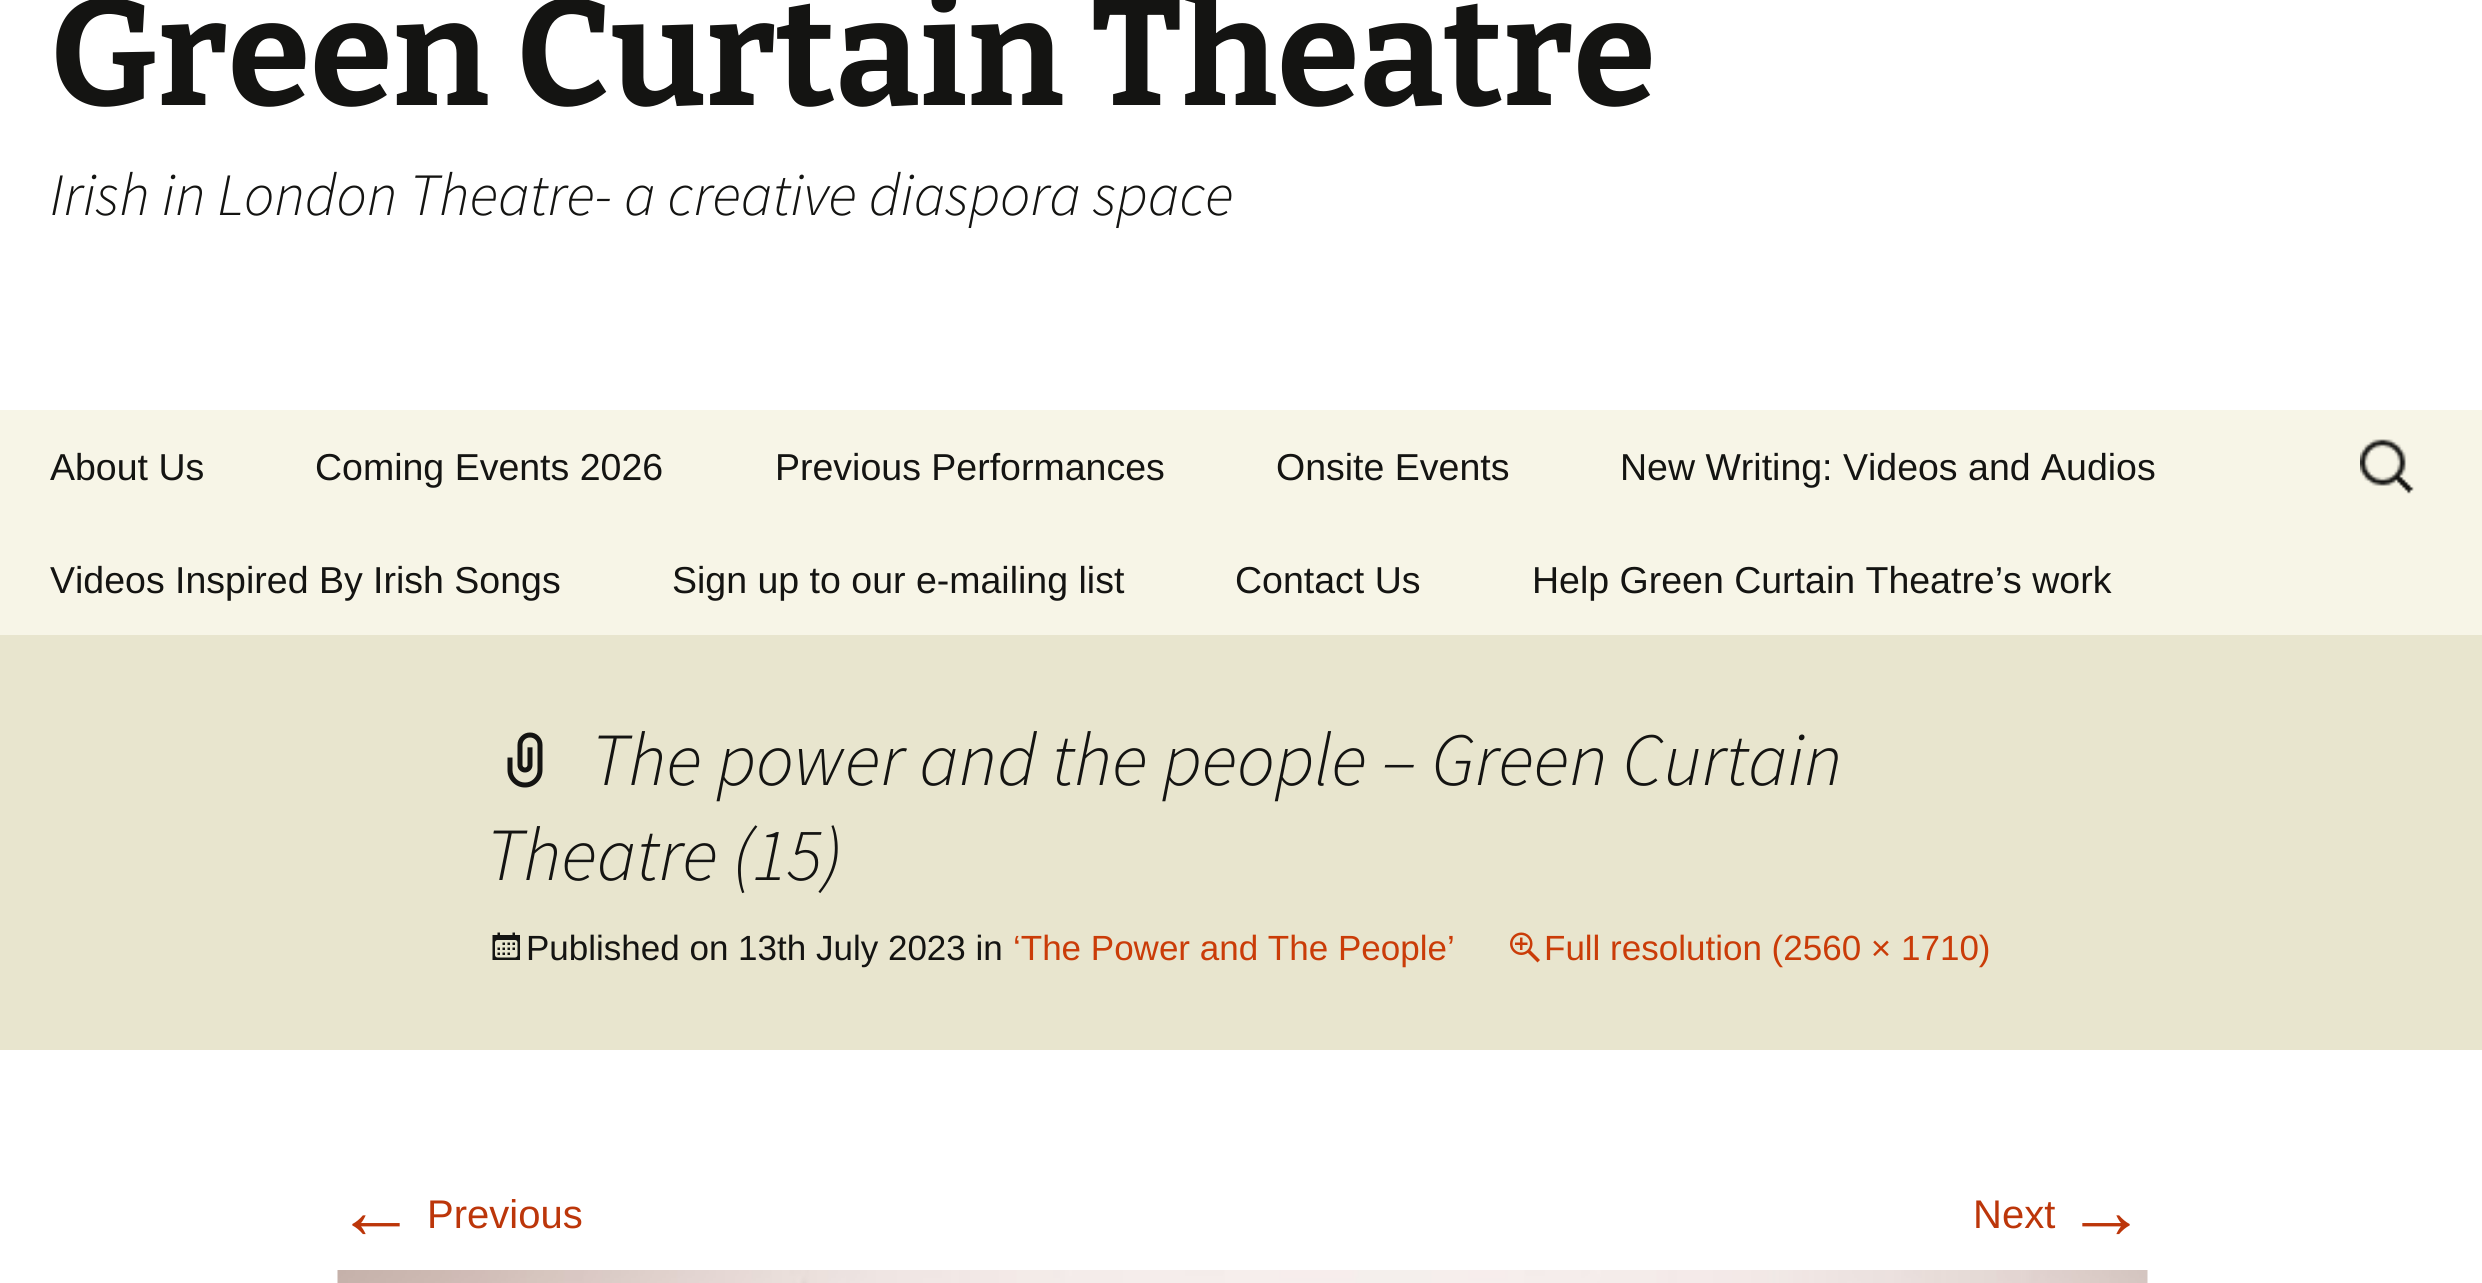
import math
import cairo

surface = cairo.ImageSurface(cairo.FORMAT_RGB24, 2482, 1283)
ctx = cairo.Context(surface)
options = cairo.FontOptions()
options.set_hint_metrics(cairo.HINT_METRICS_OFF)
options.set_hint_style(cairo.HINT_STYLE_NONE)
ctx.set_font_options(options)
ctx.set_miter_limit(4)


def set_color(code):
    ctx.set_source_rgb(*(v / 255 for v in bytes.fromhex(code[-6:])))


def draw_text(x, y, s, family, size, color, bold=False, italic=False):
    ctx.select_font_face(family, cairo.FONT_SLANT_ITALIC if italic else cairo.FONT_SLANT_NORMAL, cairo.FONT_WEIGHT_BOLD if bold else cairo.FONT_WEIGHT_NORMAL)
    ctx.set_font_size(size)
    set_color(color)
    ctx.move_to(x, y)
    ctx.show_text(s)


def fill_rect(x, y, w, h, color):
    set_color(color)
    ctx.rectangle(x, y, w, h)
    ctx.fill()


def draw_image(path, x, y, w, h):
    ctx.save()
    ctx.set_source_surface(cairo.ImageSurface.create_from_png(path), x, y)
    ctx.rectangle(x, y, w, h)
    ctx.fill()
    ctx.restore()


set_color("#ffffff")
ctx.paint()
draw_text(50, 105, "Green Curtain Theatre", "Bitter Thin", 150, "#141412")
draw_text(50, 215, "Irish in London Theatre- a creative diaspora space", "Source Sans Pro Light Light", 60, "#141412", italic=True)
fill_rect(0, 410, 2482, 225, "#f7f5e7")
draw_text(50, 480, "About Us", "Liberation Sans", 37.5, "#141412")
draw_text(315, 480, "Coming Events 2026", "Liberation Sans", 37.5, "#141412")
draw_text(775, 480, "Previous Performances", "Liberation Sans", 37.5, "#141412")
draw_text(1276, 480, "Onsite Events", "Liberation Sans", 37.5, "#141412")
draw_text(1620, 480, "New Writing: Videos and Audios", "Liberation Sans", 37.5, "#141412")
draw_text(50, 593, "Videos Inspired By Irish Songs", "Liberation Sans", 37.5, "#141412")
draw_text(672, 593, "Sign up to our e-mailing list", "Liberation Sans", 37.5, "#141412")
draw_text(1235, 593, "Contact Us", "Liberation Sans", 37.5, "#141412")
draw_text(1532, 593, "Help Green Curtain Theatre’s work", "Liberation Sans", 37.5, "#141412")
draw_image("assets/img1.png", 2360, 439, 54, 55)
fill_rect(0, 635, 2482, 415, "#e8e5ce")
draw_image("assets/img2.png", 507, 732, 36, 56)
draw_text(591, 785, "The power and the people – Green Curtain", "Source Sans Pro Light Light", 75, "#141412", italic=True)
draw_text(486, 880, "Theatre (15)", "Source Sans Pro Light Light", 75, "#141412", italic=True)
draw_image("assets/img3.png", 492, 932, 28, 28)
draw_text(526, 960, "Published on 13th July 2023 in", "Liberation Sans", 35, "#141412")
draw_text(1013, 960, "‘The Power and The People’", "Liberation Sans", 35, "#ca3c08")
draw_image("assets/img4.png", 1510, 932, 30, 31)
draw_text(1544, 960, "Full resolution (2560 × 1710)", "Liberation Sans", 35, "#ca3c08")
draw_text(336, 1238, "←", "Liberation Sans", 80, "#bc360a")
draw_text(427, 1228, "Previous", "Liberation Sans", 40, "#bc360a")
draw_text(1973, 1228, "Next", "Liberation Sans", 40, "#bc360a")
draw_text(2066, 1238, "→", "Liberation Sans", 80, "#bc360a")
draw_image("assets/img5.png", 337, 1270, 1811, 13)
surface.write_to_png("output.png")
